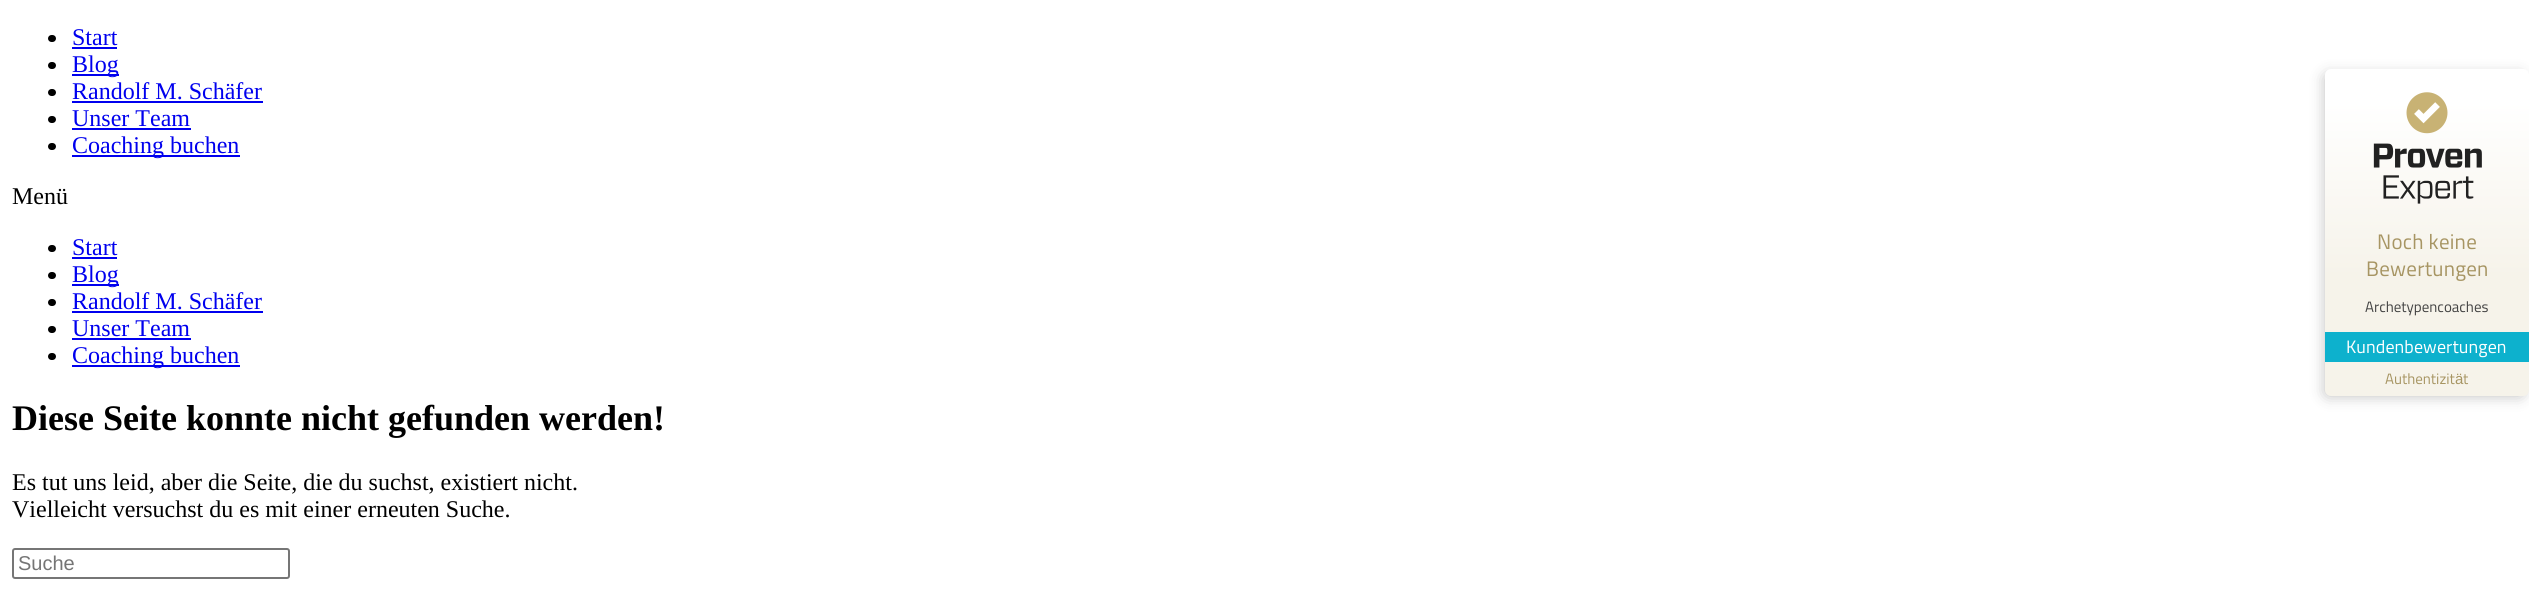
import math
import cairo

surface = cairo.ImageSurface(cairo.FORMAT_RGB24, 2529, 591)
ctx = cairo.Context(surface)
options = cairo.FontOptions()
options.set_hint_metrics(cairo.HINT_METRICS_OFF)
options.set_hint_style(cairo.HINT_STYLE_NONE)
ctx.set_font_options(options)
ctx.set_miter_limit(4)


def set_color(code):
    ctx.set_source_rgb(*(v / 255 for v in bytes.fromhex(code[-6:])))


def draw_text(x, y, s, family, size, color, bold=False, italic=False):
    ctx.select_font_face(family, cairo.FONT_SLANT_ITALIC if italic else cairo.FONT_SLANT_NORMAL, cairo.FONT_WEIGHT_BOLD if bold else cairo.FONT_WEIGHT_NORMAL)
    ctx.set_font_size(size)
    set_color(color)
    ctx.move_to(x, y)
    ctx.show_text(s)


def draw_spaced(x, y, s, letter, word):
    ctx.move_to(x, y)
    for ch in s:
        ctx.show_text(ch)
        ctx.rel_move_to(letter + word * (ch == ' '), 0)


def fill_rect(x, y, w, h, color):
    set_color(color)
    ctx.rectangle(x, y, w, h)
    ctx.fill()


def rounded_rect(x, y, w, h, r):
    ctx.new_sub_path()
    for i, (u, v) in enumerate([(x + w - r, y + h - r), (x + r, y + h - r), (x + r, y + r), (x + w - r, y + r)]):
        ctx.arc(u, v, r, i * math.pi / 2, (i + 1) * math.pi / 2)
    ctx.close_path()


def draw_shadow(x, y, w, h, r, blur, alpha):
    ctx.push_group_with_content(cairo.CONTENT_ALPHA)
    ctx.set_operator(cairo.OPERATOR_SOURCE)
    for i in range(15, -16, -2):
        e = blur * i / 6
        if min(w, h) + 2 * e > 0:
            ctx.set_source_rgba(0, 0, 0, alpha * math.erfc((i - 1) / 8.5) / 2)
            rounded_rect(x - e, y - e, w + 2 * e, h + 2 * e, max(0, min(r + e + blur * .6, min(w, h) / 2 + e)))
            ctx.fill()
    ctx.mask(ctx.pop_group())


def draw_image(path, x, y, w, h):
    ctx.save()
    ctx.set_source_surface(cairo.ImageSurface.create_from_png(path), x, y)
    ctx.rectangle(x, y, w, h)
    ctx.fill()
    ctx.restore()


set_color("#ffffff")
ctx.paint()
set_color("#000000")
rounded_rect(48, 35, 8, 7, 3.5)
ctx.fill()
draw_text(72, 45, "Start", "Liberation Serif", 24, "#0000ee")
fill_rect(72, 47, 45, 2, "#0000ee")
set_color("#000000")
rounded_rect(48, 62, 8, 7, 3.5)
ctx.fill()
fill_rect(72, 74, 47, 2, "#0000ee")
draw_text(72, 72, "Blog", "Liberation Serif", 24, "#0000ee")
set_color("#000000")
rounded_rect(48, 89, 8, 7, 3.5)
ctx.fill()
draw_text(72, 99, "Randolf M. Schäfer", "Liberation Serif", 24, "#0000ee")
fill_rect(72, 101, 191, 2, "#0000ee")
set_color("#000000")
rounded_rect(48, 116, 8, 7, 3.5)
ctx.fill()
draw_text(72, 126, "Unser Team", "Liberation Serif", 24, "#0000ee")
fill_rect(72, 128, 119, 2, "#0000ee")
set_color("#000000")
rounded_rect(48, 143, 8, 7, 3.5)
ctx.fill()
fill_rect(72, 155, 168, 2, "#0000ee")
draw_text(72, 153, "Coaching buchen", "Liberation Serif", 24, "#0000ee")
draw_text(12, 204, "Menü", "Liberation Serif", 24, "#000000")
rounded_rect(48, 245, 8, 7, 3.5)
ctx.fill()
draw_text(72, 255, "Start", "Liberation Serif", 24, "#0000ee")
fill_rect(72, 257, 45, 2, "#0000ee")
set_color("#000000")
rounded_rect(48, 272, 8, 7, 3.5)
ctx.fill()
fill_rect(72, 284, 47, 2, "#0000ee")
draw_text(72, 282, "Blog", "Liberation Serif", 24, "#0000ee")
set_color("#000000")
rounded_rect(48, 299, 8, 7, 3.5)
ctx.fill()
draw_text(72, 309, "Randolf M. Schäfer", "Liberation Serif", 24, "#0000ee")
fill_rect(72, 311, 191, 2, "#0000ee")
set_color("#000000")
rounded_rect(48, 326, 8, 7, 3.5)
ctx.fill()
draw_text(72, 336, "Unser Team", "Liberation Serif", 24, "#0000ee")
fill_rect(72, 338, 119, 2, "#0000ee")
set_color("#000000")
rounded_rect(48, 353, 8, 7, 3.5)
ctx.fill()
fill_rect(72, 365, 168, 2, "#0000ee")
draw_text(72, 363, "Coaching buchen", "Liberation Serif", 24, "#0000ee")
draw_text(12, 430, "Diese Seite konnte nicht gefunden werden!", "Liberation Serif", 36, "#000000", bold=True)
draw_text(12, 490, "Es tut uns leid, aber die Seite, die du suchst, existiert nicht.", "Liberation Serif", 24, "#000000")
draw_text(12, 517, "Vielleicht versuchst du es mit einer erneuten Suche.", "Liberation Serif", 24, "#000000")
rounded_rect(13, 549, 276, 29, 2)
set_color("#767676")
ctx.stroke()
draw_text(18, 570, "Suche", "Liberation Sans", 20, "#757575")
set_color("#000000")
draw_shadow(2325, 75, 198, 321, 3, 7.5, 0.25)
gradient = cairo.LinearGradient(2427, 396, 2427, 69)
gradient.add_color_stop_rgba(0.37, 0.965, 0.953, 0.918, 1)
gradient.add_color_stop_rgba(0.9, 1, 1, 1, 1)
ctx.set_source(gradient)
rounded_rect(2325, 69, 204, 327, 6)
ctx.fill()
draw_image("assets/img1.png", 2373, 92, 109, 112)
ctx.select_font_face("Titillium Web")
ctx.set_font_size(21)
set_color("#a79563")
draw_spaced(2377, 249, "Noch keine", 0.25, 0)
draw_spaced(2366, 276, "Bewertungen", 0.25, 0)
draw_text(2365, 312, "Archetypencoaches", "Titillium Web", 15, "#444444")
fill_rect(2325, 332, 204, 30, "#0db1cd")
ctx.set_font_size(18)
set_color("#ffffff")
draw_spaced(2346, 353, "Kundenbewertungen", 0.1, 0)
draw_text(2385, 384, "Authentizit", "Titillium Web", 15, "#a79563")
draw_text(2455, 384, "ä", "Liberation Sans", 15, "#a79563")
draw_text(2463, 384, "t", "Titillium Web", 15, "#a79563")
surface.write_to_png("output.png")
